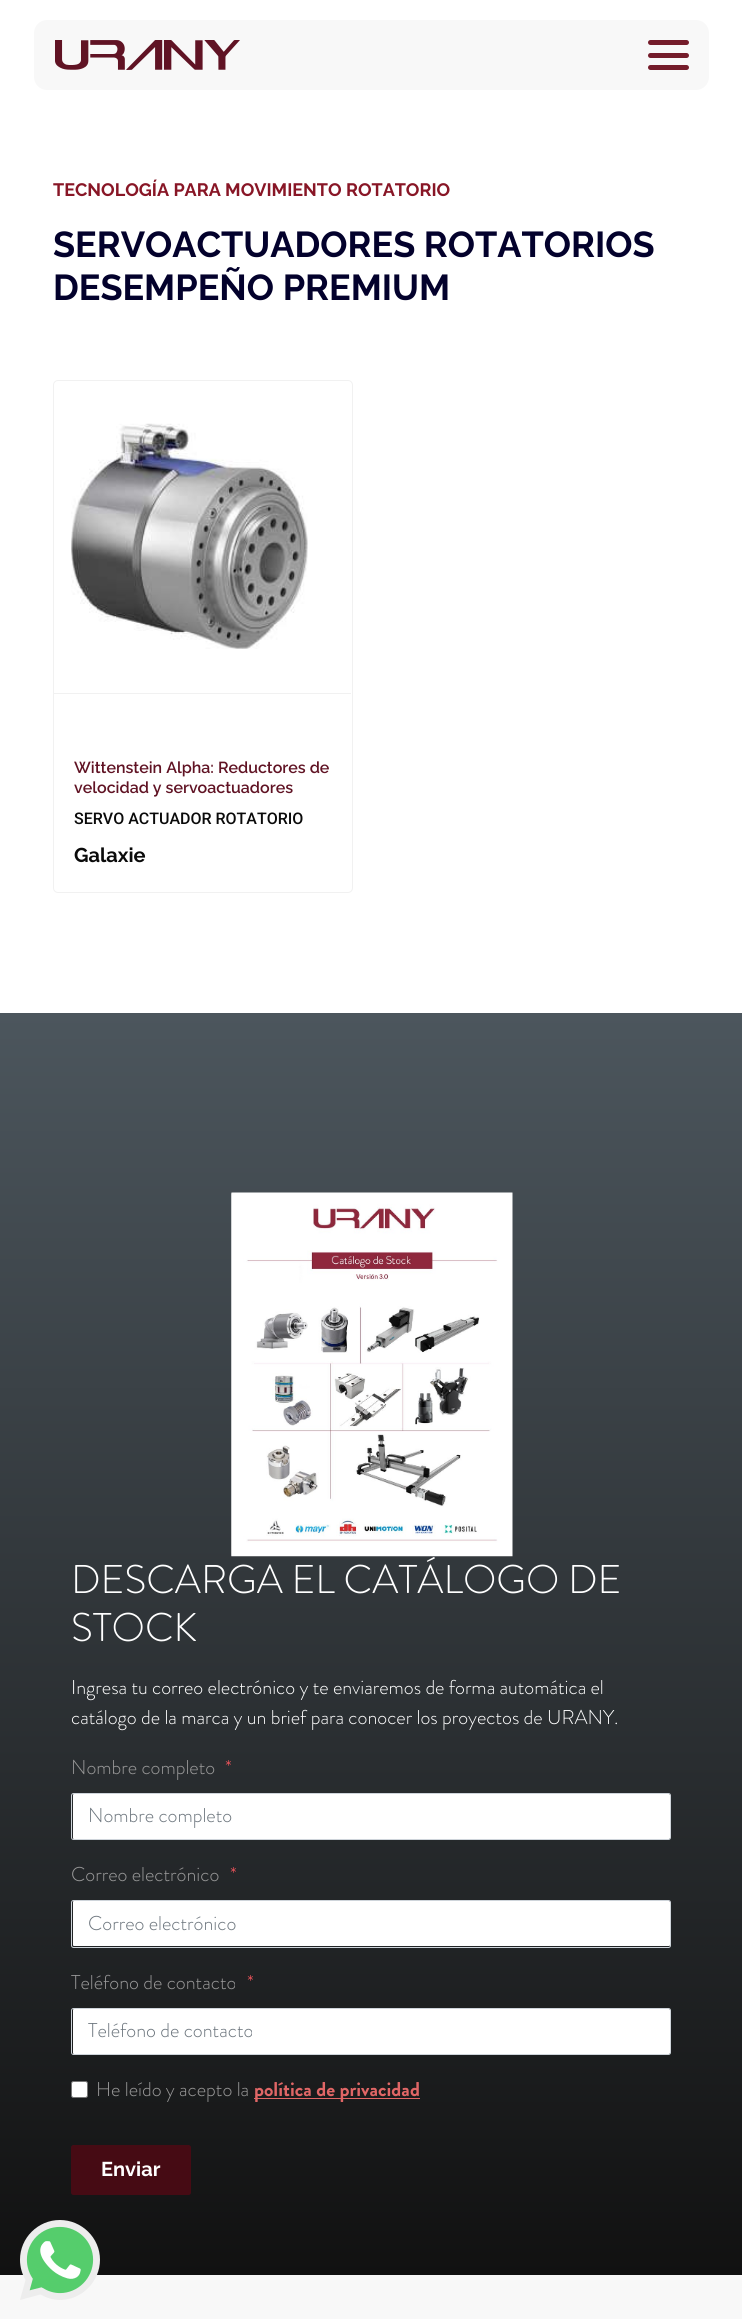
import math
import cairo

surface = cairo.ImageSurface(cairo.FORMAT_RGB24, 742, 2319)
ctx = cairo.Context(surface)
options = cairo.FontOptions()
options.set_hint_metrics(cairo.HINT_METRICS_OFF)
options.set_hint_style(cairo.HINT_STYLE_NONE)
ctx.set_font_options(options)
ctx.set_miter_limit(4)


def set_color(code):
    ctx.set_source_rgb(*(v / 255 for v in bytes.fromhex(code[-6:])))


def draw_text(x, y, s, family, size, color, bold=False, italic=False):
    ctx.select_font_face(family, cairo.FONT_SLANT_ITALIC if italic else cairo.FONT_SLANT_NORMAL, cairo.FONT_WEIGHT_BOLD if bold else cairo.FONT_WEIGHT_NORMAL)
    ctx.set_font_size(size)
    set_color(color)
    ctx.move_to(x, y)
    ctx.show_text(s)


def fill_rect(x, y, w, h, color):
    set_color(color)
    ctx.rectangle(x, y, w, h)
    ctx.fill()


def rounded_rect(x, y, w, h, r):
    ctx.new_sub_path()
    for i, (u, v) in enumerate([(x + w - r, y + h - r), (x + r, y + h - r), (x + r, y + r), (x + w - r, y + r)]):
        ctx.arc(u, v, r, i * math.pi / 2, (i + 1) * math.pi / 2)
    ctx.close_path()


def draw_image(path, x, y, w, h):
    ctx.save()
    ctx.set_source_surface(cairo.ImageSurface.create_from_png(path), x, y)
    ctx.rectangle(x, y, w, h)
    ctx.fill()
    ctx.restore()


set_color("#ffffff")
ctx.paint()
set_color("#f8f8f8")
rounded_rect(34, 20, 675, 70, 13)
ctx.fill()
draw_image("assets/img1.png", 55, 40, 185, 30)
set_color("#741c2a")
rounded_rect(648, 65, 41, 5, 2.5)
ctx.fill()
rounded_rect(648, 40, 41, 5, 2.5)
ctx.fill()
rounded_rect(648, 53, 41, 5, 2.5)
ctx.fill()
draw_text(53, 196, "TECNOLOGÍA PARA MOVIMIENTO ROTATORIO", "Raleway", 18, "#881626", bold=True)
draw_text(53, 257, "SERVOACTUADORES ROTATORIOS", "Raleway", 36, "#03012c", bold=True)
draw_text(53, 300, "DESEMPEÑO PREMIUM", "Raleway", 36, "#03012c", bold=True)
fill_rect(54, 693, 297, 1, "#f1f1f1")
draw_image("assets/img2.png", 71, 423, 237, 226)
rounded_rect(53.5, 380.5, 299, 512, 4.5)
ctx.set_line_width(1)
ctx.stroke()
draw_text(74, 773, "Wittenstein Alpha: Reductores de", "Raleway SemiBold", 16, "#601324")
draw_text(74, 793, "velocidad y servoactuadores", "Raleway SemiBold", 16, "#601324")
draw_text(74, 824, "SERVO ACTUADOR ROTATORIO", "Roboto Medium", 16, "#0a0a0a")
draw_text(74, 862, "Galaxie", "Raleway", 20, "#0a0a0a", bold=True)
gradient = cairo.LinearGradient(371, 1013, 371, 2275)
gradient.add_color_stop_rgba(0, 0.298, 0.337, 0.365, 1)
gradient.add_color_stop_rgba(1, 0.067, 0.067, 0.067, 1)
ctx.set_source(gradient)
ctx.rectangle(0, 1013, 742, 1262)
ctx.fill()
draw_image("assets/img3.png", 231, 1192, 282, 365)
draw_text(71, 1593, "DESCARGA EL CATÁLOGO DE", "Brandon Grotesque Light", 40, "#ffffff")
draw_text(71, 1641, "STOCK", "Brandon Grotesque Light", 40, "#ffffff")
draw_text(71, 1694, "Ingresa tu correo electrónico y te enviaremos de forma automática el", "Brandon Grotesque Light", 20, "#ffffff")
draw_text(71, 1724, "catálogo de la marca y un brief para conocer los proyectos de URANY.", "Brandon Grotesque Light", 20, "#ffffff")
draw_text(71, 1774, "Nombre completo", "Brandon Grotesque Light", 20, "#999999")
draw_text(225, 1774, "*", "Brandon Grotesque Light", 20, "#f2545b")
set_color("#ffffff")
rounded_rect(73, 1794, 597, 45, 1)
ctx.fill()
rounded_rect(71.5, 1793.5, 599, 46, 2)
set_color("#ced4da")
ctx.stroke()
draw_text(88, 1822, "Nombre completo", "Brandon Grotesque Light", 20, "#6c757d")
draw_text(71, 1881, "Correo electrónico", "Brandon Grotesque Light", 20, "#999999")
draw_text(230, 1881, "*", "Brandon Grotesque Light", 20, "#f2545b")
set_color("#ffffff")
rounded_rect(73, 1901, 597, 45, 1)
ctx.fill()
rounded_rect(71.5, 1900.5, 599, 47, 2)
set_color("#ced4da")
ctx.stroke()
draw_text(88, 1930, "Correo electrónico", "Brandon Grotesque Light", 20, "#6c757d")
draw_text(71, 1989, "Teléfono de contacto", "Brandon Grotesque Light", 20, "#999999")
draw_text(247, 1989, "*", "Brandon Grotesque Light", 20, "#f2545b")
set_color("#ffffff")
rounded_rect(73, 2009, 597, 45, 1)
ctx.fill()
rounded_rect(71.5, 2008.5, 599, 46, 2)
set_color("#ced4da")
ctx.stroke()
draw_text(88, 2037, "Teléfono de contacto", "Brandon Grotesque Light", 20, "#6c757d")
set_color("#ffffff")
rounded_rect(71.5, 2081.5, 16, 16, 2)
ctx.fill_preserve()
set_color("#767676")
ctx.stroke()
draw_text(96, 2096, "He leído y acepto la", "Brandon Grotesque Light", 20, "#999999")
fill_rect(254, 2098, 166, 1, "#e06666")
draw_text(254, 2096, "política de privacidad", "Brandon Grotesque", 20, "#e06666", bold=True)
set_color("#460b14")
rounded_rect(71, 2145, 120, 50, 2.5)
ctx.fill()
draw_text(101, 2176, "Enviar", "Raleway", 20, "#ffffff", bold=True)
fill_rect(0, 2275, 742, 44, "#f8f8f8")
draw_image("assets/img4.png", 20, 2220, 80, 80)
surface.write_to_png("output.png")
